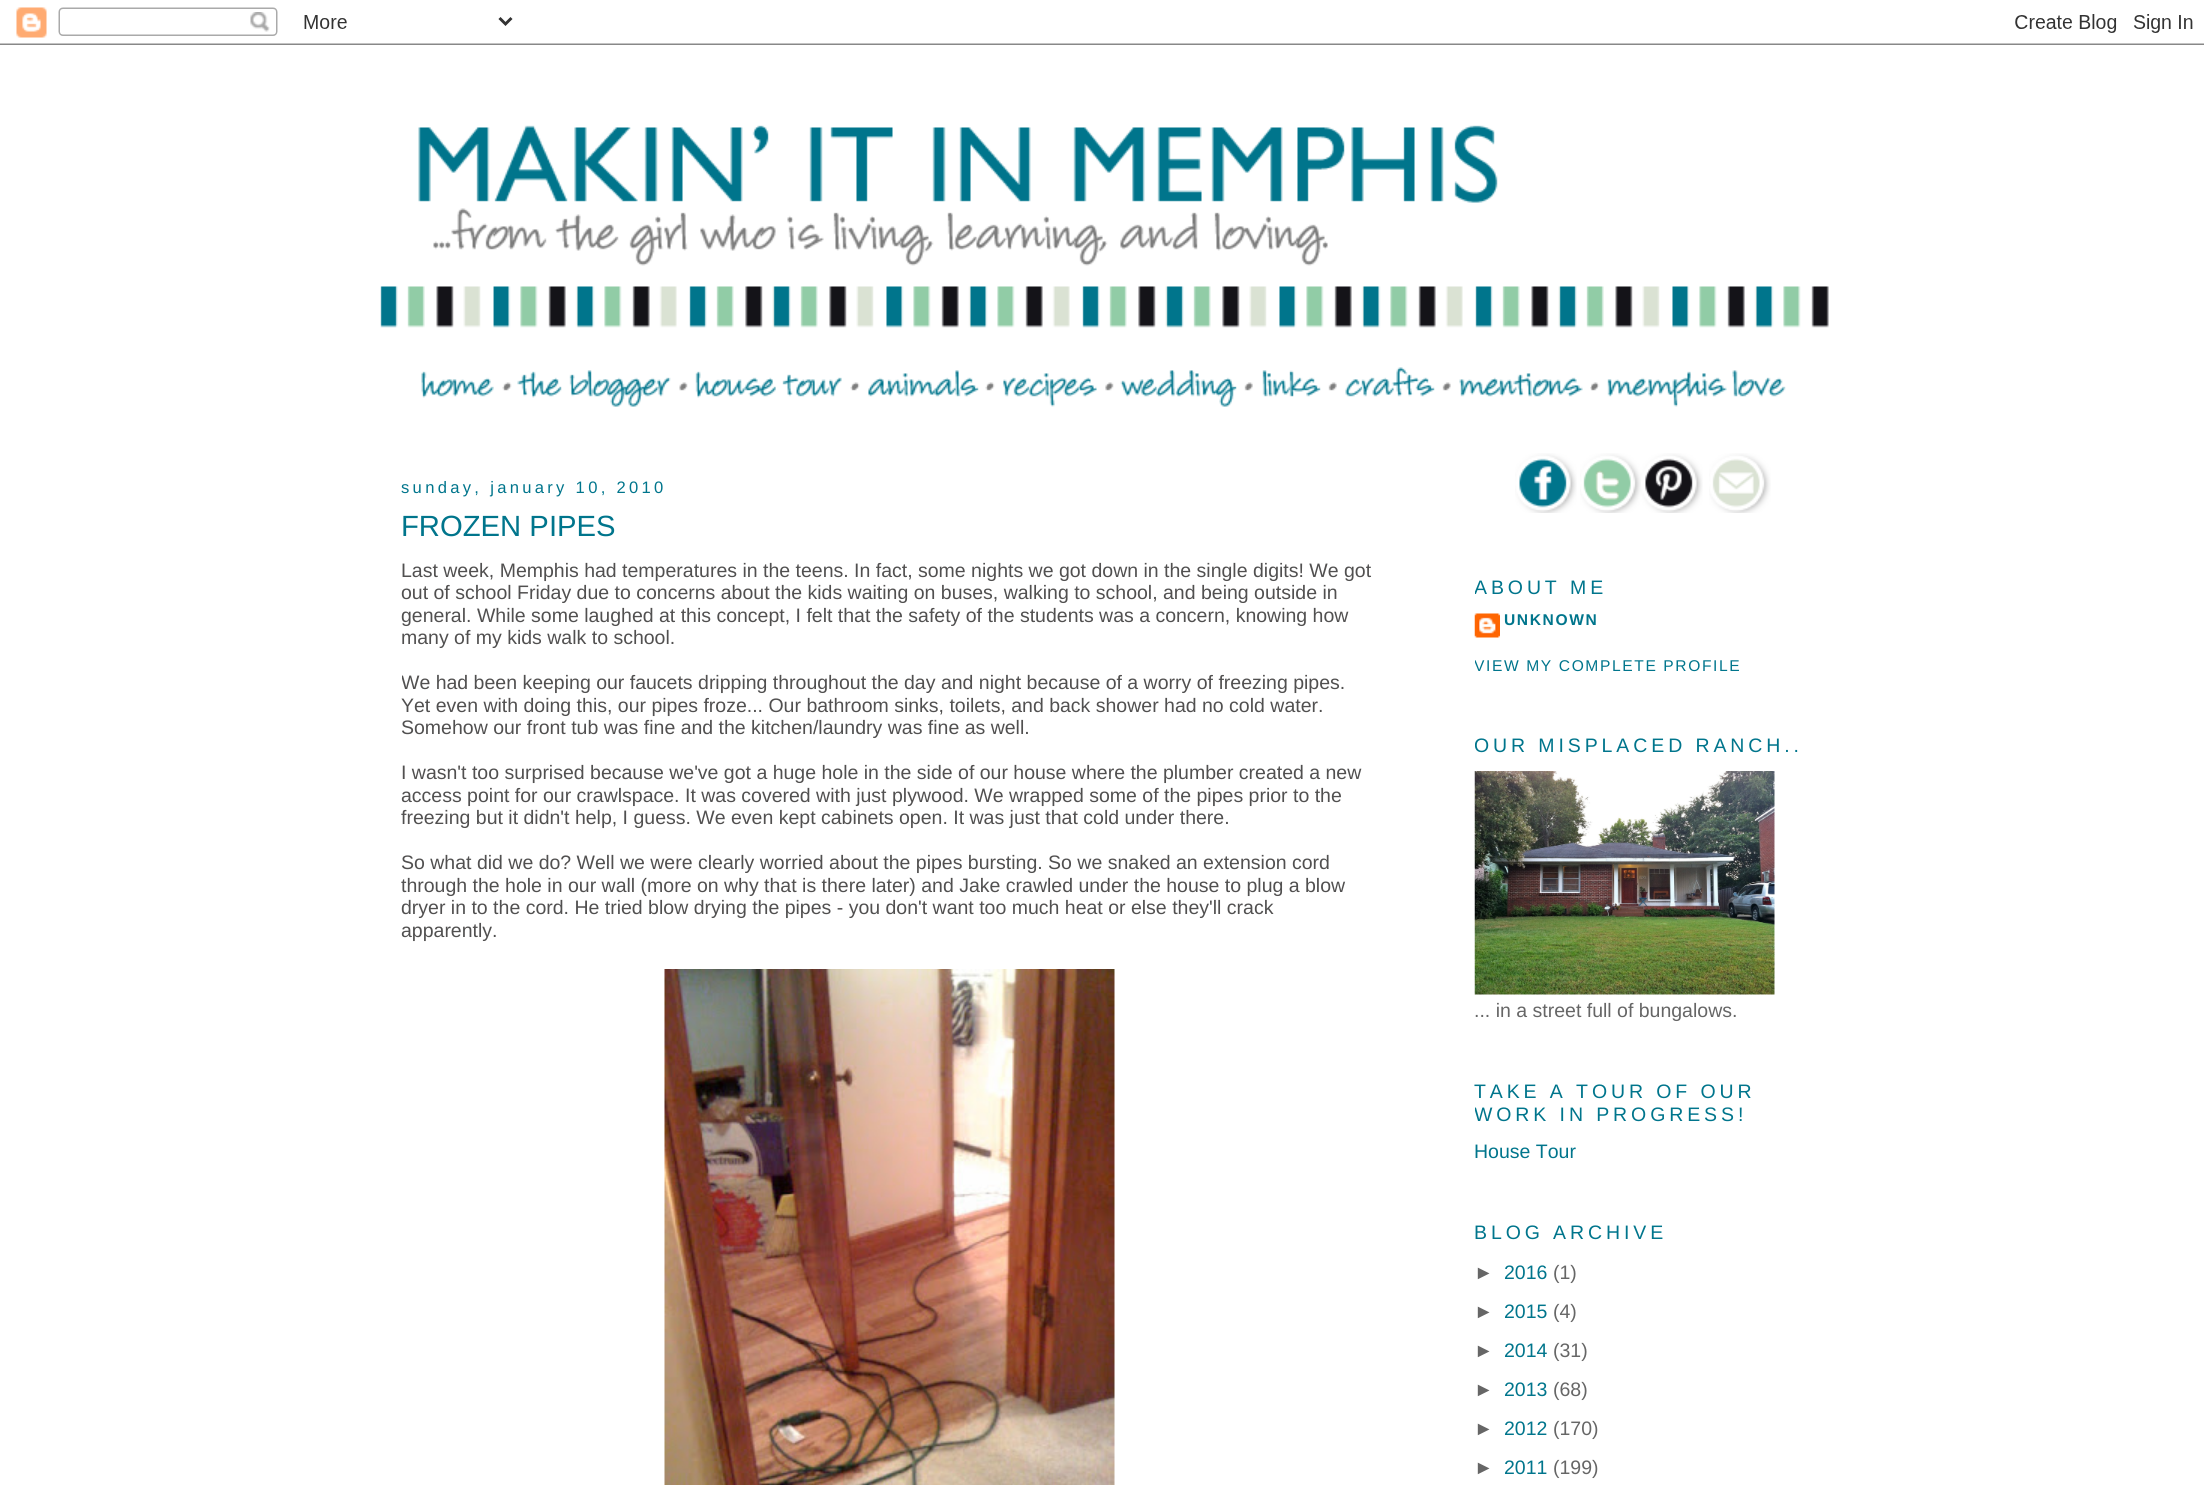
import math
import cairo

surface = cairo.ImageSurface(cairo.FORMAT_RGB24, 2204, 1485)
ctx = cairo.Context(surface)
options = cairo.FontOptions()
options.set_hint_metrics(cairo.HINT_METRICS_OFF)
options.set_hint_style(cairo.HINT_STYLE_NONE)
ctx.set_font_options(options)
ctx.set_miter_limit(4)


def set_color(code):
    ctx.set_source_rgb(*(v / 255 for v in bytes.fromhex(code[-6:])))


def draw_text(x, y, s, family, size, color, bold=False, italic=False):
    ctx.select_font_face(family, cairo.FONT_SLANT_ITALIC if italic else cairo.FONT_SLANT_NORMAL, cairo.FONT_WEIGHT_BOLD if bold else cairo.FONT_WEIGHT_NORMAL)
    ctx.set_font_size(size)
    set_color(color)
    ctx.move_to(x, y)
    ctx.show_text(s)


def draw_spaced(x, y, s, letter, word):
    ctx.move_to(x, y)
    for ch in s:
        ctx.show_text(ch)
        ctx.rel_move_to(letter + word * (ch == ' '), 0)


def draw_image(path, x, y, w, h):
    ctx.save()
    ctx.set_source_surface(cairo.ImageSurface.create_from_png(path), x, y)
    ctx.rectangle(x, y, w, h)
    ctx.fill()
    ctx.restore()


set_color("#ffffff")
ctx.paint()
draw_image("assets/img1.png", 0, 7, 2204, 38)
draw_image("assets/img2.png", 380, 125, 1449, 203)
draw_image("assets/img3.png", 421, 371, 73, 27)
draw_image("assets/img4.png", 502, 370, 169, 37)
draw_image("assets/img5.png", 679, 371, 163, 27)
draw_image("assets/img6.png", 850, 370, 129, 27)
draw_image("assets/img7.png", 985, 373, 112, 34)
draw_image("assets/img8.png", 1105, 370, 132, 37)
draw_image("assets/img9.png", 1244, 370, 77, 27)
draw_image("assets/img10.png", 1328, 367, 107, 30)
draw_image("assets/img11.png", 1442, 373, 141, 24)
draw_image("assets/img12.png", 1590, 370, 196, 37)
ctx.select_font_face("Liberation Sans")
ctx.set_font_size(16.6)
set_color("#00758c")
draw_spaced(401, 493, "sunday, january 10, 2010", 3.3, 0)
draw_text(401, 536, "FROZEN PIPES", "Liberation Sans", 29.25, "#00758c")
draw_text(401, 577, "Last week, Memphis had temperatures in the teens. In fact, some nights we got down in the single digits! We got", "Liberation Sans", 19.5, "#515050")
draw_text(401, 599, "out of school Friday due to concerns about the kids waiting on buses, walking to school, and being outside in", "Liberation Sans", 19.5, "#515050")
draw_text(401, 622, "general. While some laughed at this concept, I felt that the safety of the students was a concern, knowing how", "Liberation Sans", 19.5, "#515050")
draw_text(401, 644, "many of my kids walk to school.", "Liberation Sans", 19.5, "#515050")
ctx.save()
ctx.rectangle(402, 453, 975, 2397)
ctx.clip()
draw_text(401, 689, "We had been keeping our faucets dripping throughout the day and night because of a worry of freezing pipes.", "Liberation Sans", 19.5, "#515050")
ctx.restore()
draw_text(401, 712, "Yet even with doing this, our pipes froze... Our bathroom sinks, toilets, and back shower had no cold water.", "Liberation Sans", 19.5, "#515050")
draw_text(401, 734, "Somehow our front tub was fine and the kitchen/laundry was fine as well.", "Liberation Sans", 19.5, "#515050")
draw_text(401, 779, "I wasn't too surprised because we've got a huge hole in the side of our house where the plumber created a new", "Liberation Sans", 19.5, "#515050")
draw_text(401, 802, "access point for our crawlspace. It was covered with just plywood. We wrapped some of the pipes prior to the", "Liberation Sans", 19.5, "#515050")
draw_text(401, 824, "freezing but it didn't help, I guess. We even kept cabinets open. It was just that cold under there.", "Liberation Sans", 19.5, "#515050")
draw_text(401, 869, "So what did we do? Well we were clearly worried about the pipes bursting. So we snaked an extension cord", "Liberation Sans", 19.5, "#515050")
draw_text(401, 892, "through the hole in our wall (more on why that is there later) and Jake crawled under the house to plug a blow", "Liberation Sans", 19.5, "#515050")
draw_text(401, 914, "dryer in to the cord. He tried blow drying the pipes - you don't want too much heat or else they'll crack", "Liberation Sans", 19.5, "#515050")
draw_text(401, 937, "apparently.", "Liberation Sans", 19.5, "#515050")
draw_image("assets/img13.png", 664, 969, 451, 516)
draw_image("assets/img14.png", 1515, 453, 62, 60)
draw_image("assets/img15.png", 1580, 453, 61, 60)
draw_image("assets/img16.png", 1641, 453, 62, 60)
draw_image("assets/img17.png", 1709, 453, 62, 60)
ctx.save()
ctx.rectangle(1475, 453, 330, 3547)
ctx.clip()
set_color("#00758c")
draw_spaced(1474, 594, "ABOUT ME", 3.9, 0)
ctx.restore()
draw_image("assets/img18.png", 1474, 613, 26, 25)
ctx.select_font_face("Liberation Sans", cairo.FONT_SLANT_NORMAL, cairo.FONT_WEIGHT_BOLD)
ctx.set_font_size(15.6)
set_color("#00758c")
draw_spaced(1504, 625, "UNKNOWN", 1.6, 0)
ctx.save()
ctx.rectangle(1475, 453, 330, 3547)
ctx.clip()
ctx.select_font_face("Liberation Sans")
draw_spaced(1474, 671, "VIEW MY COMPLETE PROFILE", 1.6, 0)
ctx.set_font_size(19.5)
draw_spaced(1474, 752, "OUR MISPLACED RANCH..", 3.9, 0)
ctx.restore()
draw_image("assets/img19.png", 1474, 771, 301, 224)
draw_text(1474, 1017, "... in a street full of bungalows.", "Liberation Sans", 19.5, "#666666")
set_color("#00758c")
draw_spaced(1474, 1098, "TAKE A TOUR OF OUR", 3.9, 0)
ctx.save()
ctx.rectangle(1475, 453, 330, 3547)
ctx.clip()
draw_spaced(1474, 1121, "WORK IN PROGRESS!", 3.9, 0)
ctx.restore()
draw_text(1474, 1158, "House Tour", "Liberation Sans", 19.5, "#00758c")
draw_spaced(1474, 1239, "BLOG ARCHIVE", 3.9, 0)
draw_text(1474, 1279, "►", "Liberation Sans", 19.5, "#666666")
draw_text(1504, 1279, "2016", "Liberation Sans", 19.5, "#00758c")
draw_text(1553, 1279, "(1)", "Liberation Sans", 19.5, "#666666")
draw_text(1474, 1318, "►", "Liberation Sans", 19.5, "#666666")
draw_text(1504, 1318, "2015", "Liberation Sans", 19.5, "#00758c")
draw_text(1553, 1318, "(4)", "Liberation Sans", 19.5, "#666666")
draw_text(1474, 1357, "►", "Liberation Sans", 19.5, "#666666")
draw_text(1504, 1357, "2014", "Liberation Sans", 19.5, "#00758c")
draw_text(1553, 1357, "(31)", "Liberation Sans", 19.5, "#666666")
draw_text(1474, 1396, "►", "Liberation Sans", 19.5, "#666666")
draw_text(1504, 1396, "2013", "Liberation Sans", 19.5, "#00758c")
draw_text(1553, 1396, "(68)", "Liberation Sans", 19.5, "#666666")
draw_text(1474, 1435, "►", "Liberation Sans", 19.5, "#666666")
draw_text(1504, 1435, "2012", "Liberation Sans", 19.5, "#00758c")
draw_text(1553, 1435, "(170)", "Liberation Sans", 19.5, "#666666")
draw_text(1474, 1474, "►", "Liberation Sans", 19.5, "#666666")
draw_text(1504, 1474, "2011", "Liberation Sans", 19.5, "#00758c")
draw_text(1553, 1474, "(199)", "Liberation Sans", 19.5, "#666666")
surface.write_to_png("output.png")
